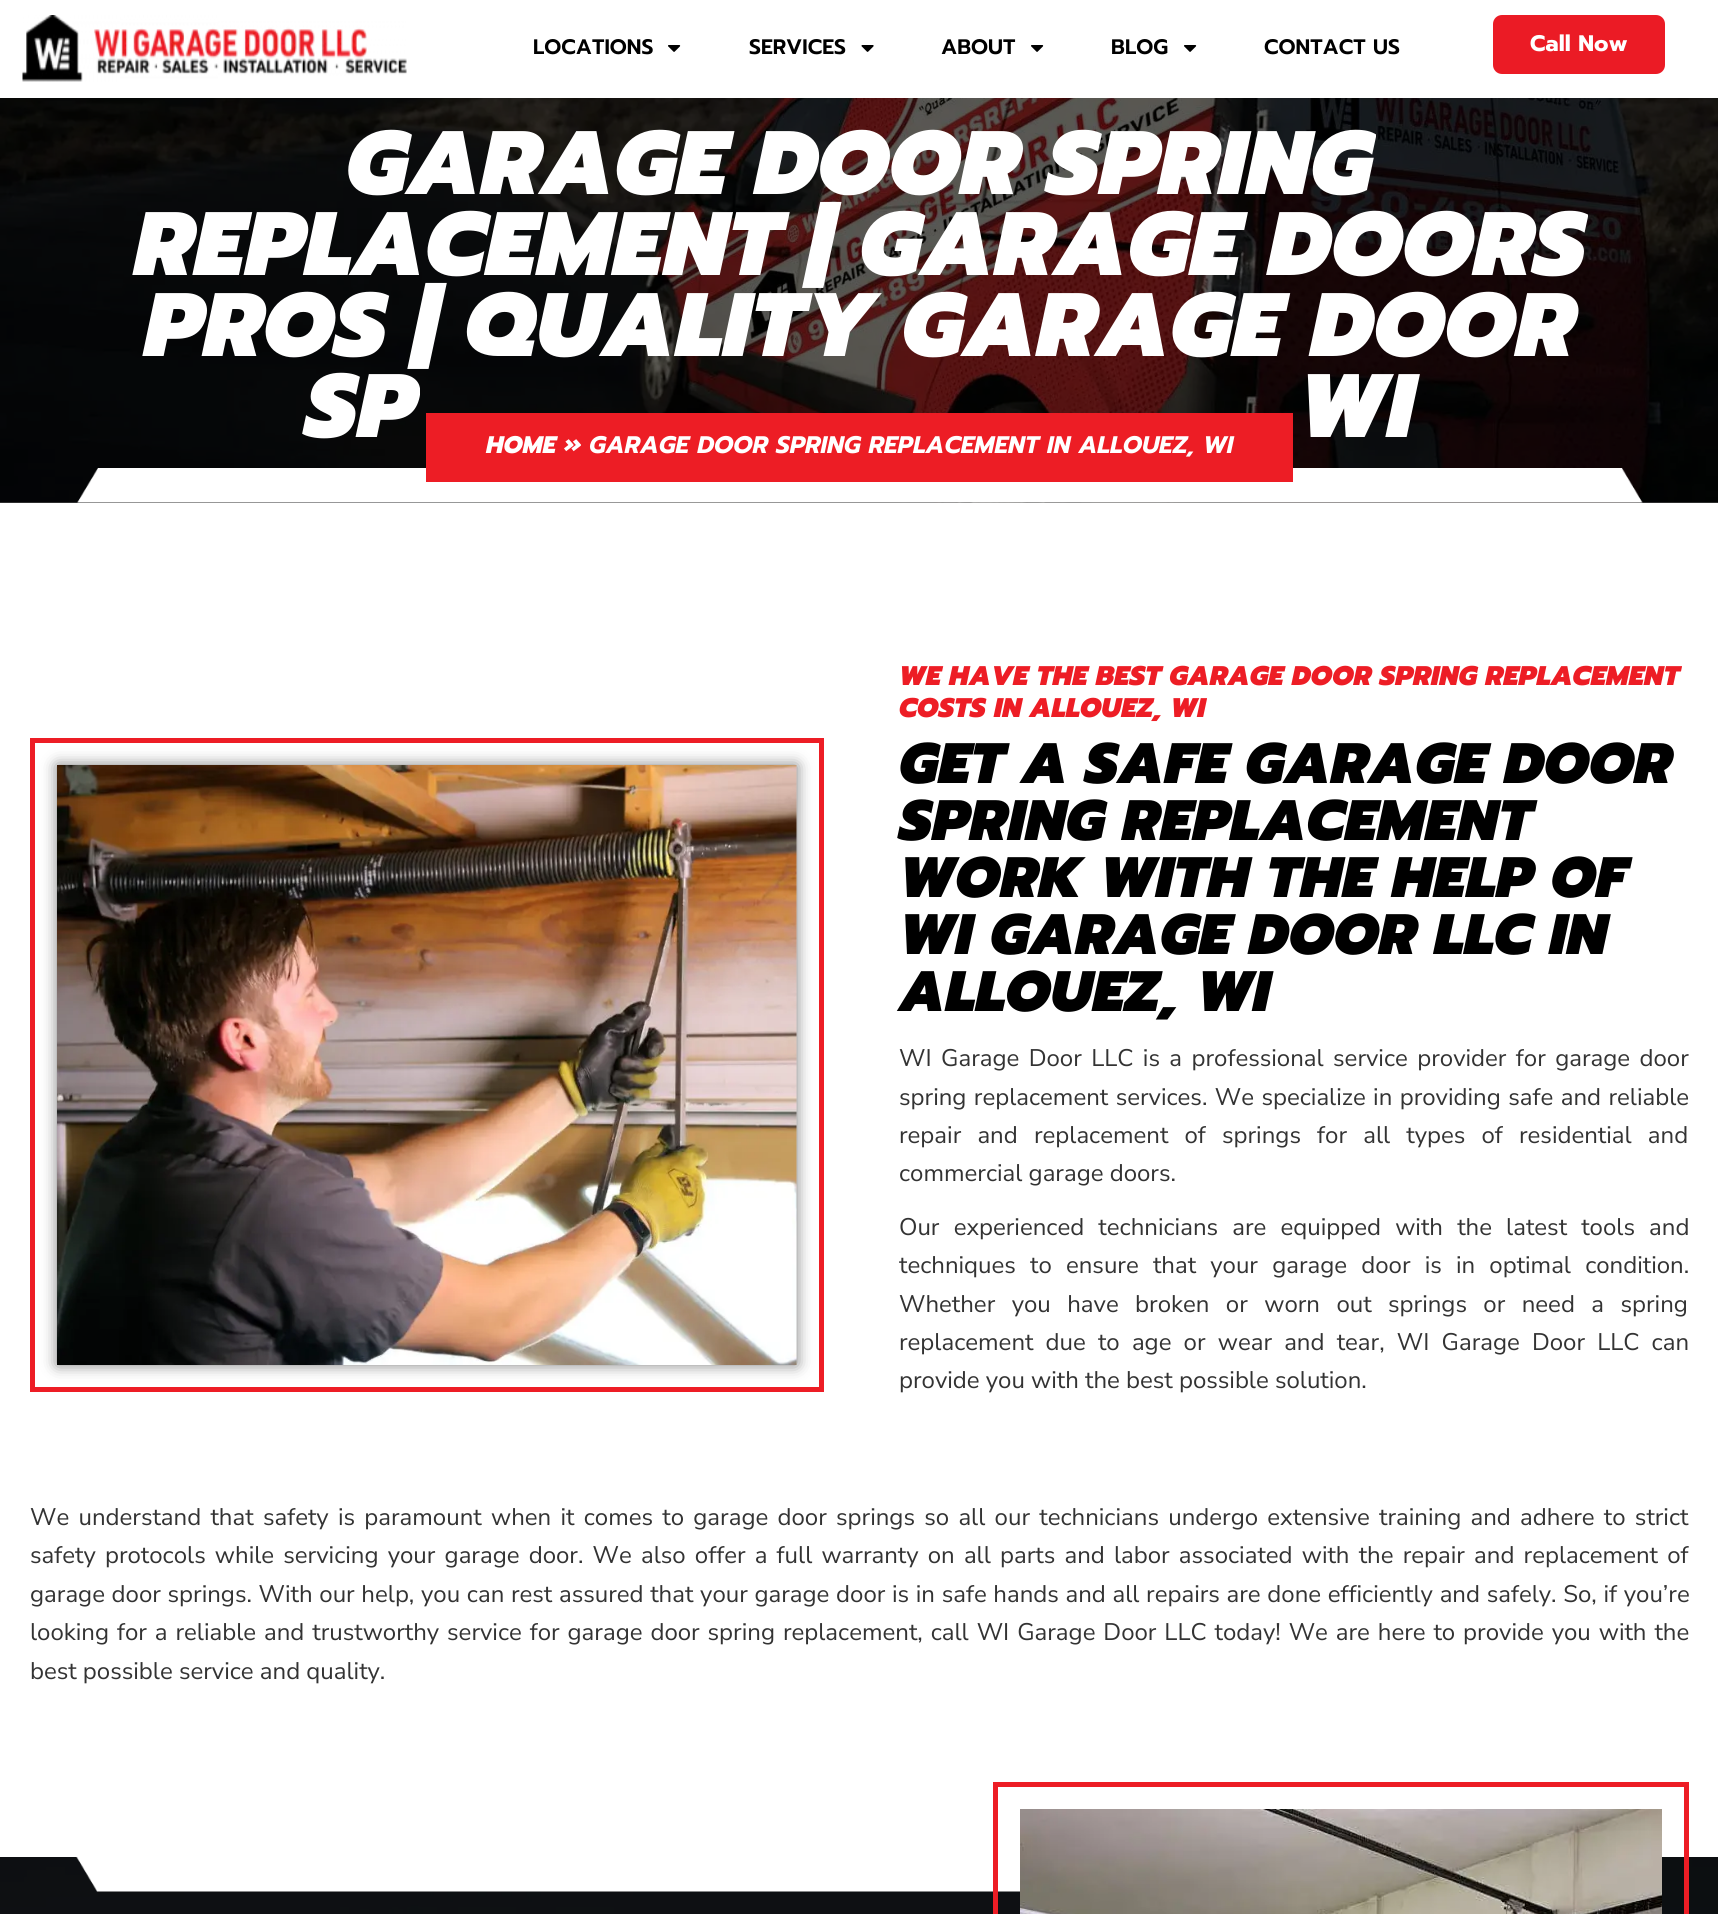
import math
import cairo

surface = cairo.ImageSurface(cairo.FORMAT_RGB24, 1718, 1914)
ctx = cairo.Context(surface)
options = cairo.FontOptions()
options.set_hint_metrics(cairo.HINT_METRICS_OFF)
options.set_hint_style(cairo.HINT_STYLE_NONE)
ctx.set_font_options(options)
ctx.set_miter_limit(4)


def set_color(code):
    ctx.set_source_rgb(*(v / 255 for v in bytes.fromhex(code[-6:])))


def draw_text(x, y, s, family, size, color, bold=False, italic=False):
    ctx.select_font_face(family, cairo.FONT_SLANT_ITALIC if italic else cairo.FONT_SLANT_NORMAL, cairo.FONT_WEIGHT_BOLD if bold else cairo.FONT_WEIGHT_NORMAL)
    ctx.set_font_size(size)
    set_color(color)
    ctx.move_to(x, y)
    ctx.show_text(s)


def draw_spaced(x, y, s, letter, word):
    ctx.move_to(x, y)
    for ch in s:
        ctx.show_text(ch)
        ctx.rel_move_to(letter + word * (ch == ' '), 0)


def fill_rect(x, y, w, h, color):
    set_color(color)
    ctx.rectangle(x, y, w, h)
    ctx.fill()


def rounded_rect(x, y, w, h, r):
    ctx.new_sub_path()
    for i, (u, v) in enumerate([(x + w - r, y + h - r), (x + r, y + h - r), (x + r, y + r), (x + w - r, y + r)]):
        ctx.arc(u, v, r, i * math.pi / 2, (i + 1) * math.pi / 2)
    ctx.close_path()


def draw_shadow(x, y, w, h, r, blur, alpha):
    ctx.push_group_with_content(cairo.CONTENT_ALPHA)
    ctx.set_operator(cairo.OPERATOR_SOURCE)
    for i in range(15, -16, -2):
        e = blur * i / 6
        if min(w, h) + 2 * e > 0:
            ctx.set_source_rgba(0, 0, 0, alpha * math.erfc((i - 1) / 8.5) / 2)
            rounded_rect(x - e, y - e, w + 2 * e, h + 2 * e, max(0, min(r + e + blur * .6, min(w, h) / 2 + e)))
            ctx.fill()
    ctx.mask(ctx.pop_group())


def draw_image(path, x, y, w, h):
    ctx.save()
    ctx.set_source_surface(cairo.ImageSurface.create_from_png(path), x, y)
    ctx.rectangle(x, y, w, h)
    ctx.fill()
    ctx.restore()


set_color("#ffffff")
ctx.paint()
fill_rect(0, 502, 1718, 1, "#595959")
draw_image("assets/img1.png", 22, 15, 385, 67)
draw_text(533, 54, "LOCATIONS", "Prompt SemiBold", 21, "#000000")
draw_image("assets/img2.png", 668, 45, 13, 7)
draw_text(749, 54, "SERVICES", "Prompt SemiBold", 21, "#000000")
draw_image("assets/img3.png", 861, 45, 13, 7)
draw_text(941, 54, "ABOUT", "Prompt SemiBold", 21, "#000000")
draw_image("assets/img2.png", 1031, 45, 13, 7)
draw_text(1111, 54, "BLOG", "Prompt SemiBold", 21, "#000000")
draw_image("assets/img2.png", 1184, 45, 13, 7)
draw_text(1264, 54, "CONTACT US", "Prompt SemiBold", 21, "#000000")
set_color("#eb1b25")
rounded_rect(1493, 15, 172, 59, 9)
ctx.fill()
draw_text(1530, 51, "Call Now", "Prompt", 22.5, "#ffffff", bold=True)
draw_image("assets/img4.png", 0, 98, 1718, 405)
draw_text(346, 194, "GARAGE DOOR SPRING", "Prompt Black", 90, "#ffffff", italic=True)
draw_text(134, 275, "REPLACEMENT | GARAGE DOORS", "Prompt Black", 90, "#ffffff", italic=True)
draw_text(144, 356, "PROS | QUALITY GARAGE DOOR", "Prompt Black", 90, "#ffffff", italic=True)
draw_text(305, 437, "SP", "Prompt Black", 90, "#ffffff", italic=True)
draw_text(1298, 437, "WI", "Prompt Black", 90, "#ffffff", italic=True)
draw_image("assets/img5.png", 77, 468, 1566, 35)
fill_rect(426, 413, 867, 69, "#ed1d25")
draw_text(486, 453, "HOME »", "Prompt ExtraBold", 24, "#ffffff", italic=True)
draw_text(589, 453, "GARAGE DOOR SPRING REPLACEMENT IN ALLOUEZ, WI", "Prompt", 24, "#ffffff", bold=True, italic=True)
ctx.rectangle(32.5, 740.5, 789, 649)
set_color("#ed1d25")
ctx.set_line_width(5)
ctx.stroke()
set_color("#000000")
draw_shadow(57, 765, 740, 600, 0, 7.5, 0.5)
draw_image("assets/img6.png", 57, 765, 740, 600)
draw_text(899, 685, "WE HAVE THE BEST GARAGE DOOR SPRING REPLACEMENT", "Prompt Black", 27, "#ed1d25", italic=True)
draw_text(899, 717, "COSTS IN ALLOUEZ, WI", "Prompt Black", 27, "#ed1d25", italic=True)
draw_text(899, 783, "GET A SAFE GARAGE DOOR", "Prompt Black", 57, "#000000", italic=True)
draw_text(899, 840, "SPRING REPLACEMENT", "Prompt Black", 57, "#000000", italic=True)
draw_text(899, 897, "WORK WITH THE HELP OF", "Prompt Black", 57, "#000000", italic=True)
draw_text(899, 954, "WI GARAGE DOOR LLC IN", "Prompt Black", 57, "#000000", italic=True)
draw_text(899, 1011, "ALLOUEZ, WI", "Prompt Black", 57, "#000000", italic=True)
ctx.select_font_face("Nunito Sans")
ctx.set_font_size(24)
set_color("#333333")
draw_spaced(899, 1066, "WI Garage Door LLC is a professional service provider for garage door", 0, 3.25)
draw_spaced(899, 1105, "spring replacement services. We specialize in providing safe and reliable", 0, 1.25)
draw_spaced(899, 1143, "repair and replacement of springs for all types of residential and", 0, 10)
draw_text(899, 1181, "commercial garage doors.", "Nunito Sans", 24, "#333333")
draw_spaced(899, 1235, "Our experienced technicians are equipped with the latest tools and", 0, 8)
draw_spaced(899, 1273, "techniques to ensure that your garage door is in optimal condition.", 0, 8)
draw_spaced(899, 1312, "Whether you have broken or worn out springs or need a spring", 0, 10.25)
draw_spaced(899, 1350, "replacement due to age or wear and tear, WI Garage Door LLC can", 0, 6)
draw_text(899, 1388, "provide you with the best possible solution.", "Nunito Sans", 24, "#333333")
draw_spaced(30, 1525, "We understand that safety is paramount when it comes to garage door springs so all our technicians undergo extensive training and adhere to strict", 0, 3.1)
draw_spaced(30, 1563, "safety protocols while servicing your garage door. We also offer a full warranty on all parts and labor associated with the repair and replacement of", 0, 3)
draw_spaced(30, 1602, "garage door springs. With our help, you can rest assured that your garage door is in safe hands and all repairs are done efficiently and safely. So, if you’re", 0, 0.5)
draw_spaced(30, 1640, "looking for a reliable and trustworthy service for garage door spring replacement, call WI Garage Door LLC today! We are here to provide you with the", 0, 1.75)
draw_text(30, 1679, "best possible service and quality.", "Nunito Sans", 24, "#333333")
draw_image("assets/img7.png", 0, 1857, 1718, 57)
draw_image("assets/img8.png", 76, 1857, 944, 35)
ctx.rectangle(995.5, 1784.5, 691, 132)
set_color("#ed1d25")
ctx.stroke()
draw_image("assets/img9.png", 1020, 1809, 642, 105)
surface.write_to_png("output.png")
